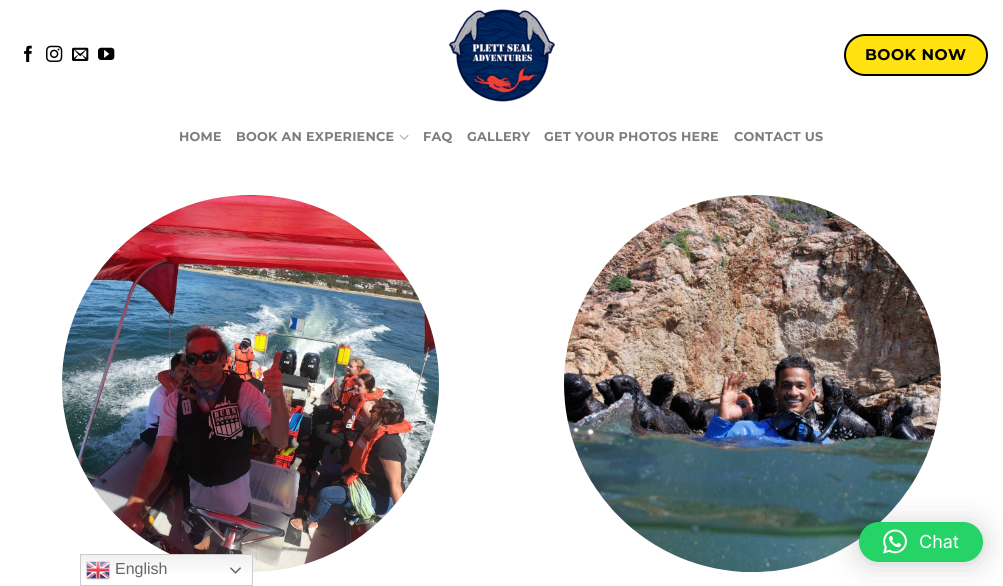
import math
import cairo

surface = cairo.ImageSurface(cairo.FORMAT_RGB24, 1003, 586)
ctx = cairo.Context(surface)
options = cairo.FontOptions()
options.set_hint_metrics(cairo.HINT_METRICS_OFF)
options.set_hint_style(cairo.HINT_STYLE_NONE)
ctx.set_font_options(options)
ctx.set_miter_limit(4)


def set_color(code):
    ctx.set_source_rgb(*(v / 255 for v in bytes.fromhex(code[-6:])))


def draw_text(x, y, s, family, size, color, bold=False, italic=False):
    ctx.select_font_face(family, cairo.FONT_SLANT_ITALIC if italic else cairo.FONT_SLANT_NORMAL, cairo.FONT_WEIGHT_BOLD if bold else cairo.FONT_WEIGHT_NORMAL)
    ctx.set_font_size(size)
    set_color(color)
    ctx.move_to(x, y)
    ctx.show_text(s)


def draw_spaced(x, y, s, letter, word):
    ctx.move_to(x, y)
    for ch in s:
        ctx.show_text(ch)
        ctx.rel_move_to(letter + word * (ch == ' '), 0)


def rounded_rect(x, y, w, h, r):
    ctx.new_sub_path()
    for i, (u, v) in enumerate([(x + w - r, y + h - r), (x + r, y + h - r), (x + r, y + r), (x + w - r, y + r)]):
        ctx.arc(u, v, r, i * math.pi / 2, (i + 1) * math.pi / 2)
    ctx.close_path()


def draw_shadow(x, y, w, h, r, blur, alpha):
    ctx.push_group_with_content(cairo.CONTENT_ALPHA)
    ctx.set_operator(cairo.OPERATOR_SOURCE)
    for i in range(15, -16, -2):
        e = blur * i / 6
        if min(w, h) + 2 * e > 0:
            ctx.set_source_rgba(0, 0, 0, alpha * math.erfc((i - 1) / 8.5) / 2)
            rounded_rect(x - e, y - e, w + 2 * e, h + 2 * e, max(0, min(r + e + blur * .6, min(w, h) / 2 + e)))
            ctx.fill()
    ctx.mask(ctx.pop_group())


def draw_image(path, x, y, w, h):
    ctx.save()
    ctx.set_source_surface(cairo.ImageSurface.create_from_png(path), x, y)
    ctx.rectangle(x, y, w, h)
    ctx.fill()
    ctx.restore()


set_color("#ffffff")
ctx.paint()
draw_image("assets/img1.png", 24, 45, 8, 17)
draw_image("assets/img2.png", 46, 45, 17, 17)
draw_image("assets/img3.png", 72, 47, 17, 14)
draw_image("assets/img4.png", 98, 47, 17, 13)
draw_image("assets/img5.png", 449, 9, 106, 93)
set_color("#ffe210")
rounded_rect(845, 35, 142, 40, 20)
ctx.fill_preserve()
set_color("#000000")
ctx.stroke()
ctx.select_font_face("Montserrat", cairo.FONT_SLANT_NORMAL, cairo.FONT_WEIGHT_BOLD)
ctx.set_font_size(15.5)
draw_spaced(865, 60, "BOOK NOW", 0.5, 0)
ctx.set_font_size(12.75)
set_color("#7d7d7d")
draw_spaced(179, 141, "HOME", 0.25, 0)
draw_spaced(236, 141, "BOOK AN EXPERIENCE", 0.25, 0)
draw_image("assets/img6.png", 399, 134, 10, 6)
draw_spaced(423, 141, "FAQ", 0.25, 0)
draw_spaced(467, 141, "GALLERY", 0.25, 0)
draw_spaced(544, 141, "GET YOUR PHOTOS HERE", 0.25, 0)
draw_spaced(734, 141, "CONTACT US", 0.25, 0)
draw_image("assets/img7.png", 62, 195, 377, 377)
draw_image("assets/img8.png", 564, 195, 377, 377)
set_color("#000000")
draw_shadow(859, 524, 124, 40, 20, 16, 0.16)
draw_shadow(859, 523, 124, 40, 20, 3, 0.06)
set_color("#25d366")
rounded_rect(859, 522, 124, 40, 20)
ctx.fill()
draw_image("assets/img9.png", 883, 529, 24, 25)
draw_text(919, 548, "Chat", "Inter", 18, "#ffffff")
gradient = cairo.LinearGradient(167, 554, 167, 586)
gradient.add_color_stop_rgba(0, 0.937, 0.937, 0.937, 1)
gradient.add_color_stop_rgba(0.7, 1, 1, 1, 1)
ctx.set_source(gradient)
ctx.rectangle(81, 555, 171, 18)
ctx.fill()
ctx.rectangle(80.5, 554.5, 172, 31)
set_color("#cccccc")
ctx.set_line_width(1)
ctx.stroke()
draw_image("assets/img10.png", 86, 561, 24, 19)
draw_text(115, 574, "English", "Liberation Sans", 16, "#666666")
draw_image("assets/img11.png", 230, 567, 11, 7)
surface.write_to_png("output.png")
